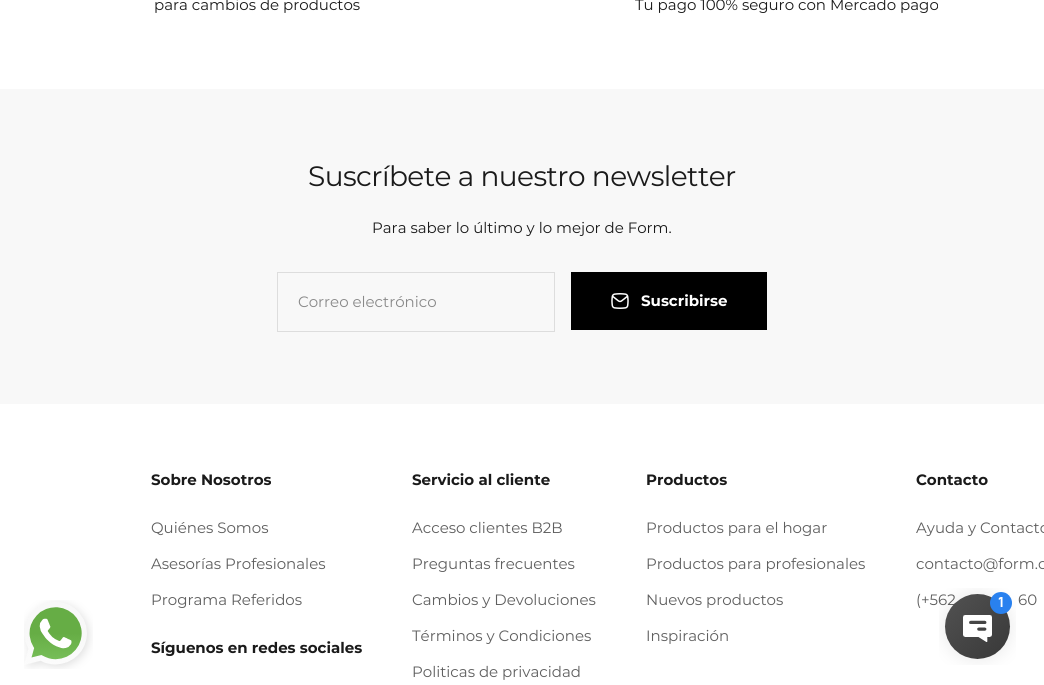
import math
import cairo

surface = cairo.ImageSurface(cairo.FORMAT_RGB24, 1044, 685)
ctx = cairo.Context(surface)
options = cairo.FontOptions()
options.set_hint_metrics(cairo.HINT_METRICS_OFF)
options.set_hint_style(cairo.HINT_STYLE_NONE)
ctx.set_font_options(options)
ctx.set_miter_limit(4)


def set_color(code):
    ctx.set_source_rgb(*(v / 255 for v in bytes.fromhex(code[-6:])))


def draw_text(x, y, s, family, size, color, bold=False, italic=False):
    ctx.select_font_face(family, cairo.FONT_SLANT_ITALIC if italic else cairo.FONT_SLANT_NORMAL, cairo.FONT_WEIGHT_BOLD if bold else cairo.FONT_WEIGHT_NORMAL)
    ctx.set_font_size(size)
    set_color(color)
    ctx.move_to(x, y)
    ctx.show_text(s)


def draw_spaced(x, y, s, letter, word):
    ctx.move_to(x, y)
    for ch in s:
        ctx.show_text(ch)
        ctx.rel_move_to(letter + word * (ch == ' '), 0)


def fill_rect(x, y, w, h, color):
    set_color(color)
    ctx.rectangle(x, y, w, h)
    ctx.fill()


def draw_image(path, x, y, w, h):
    ctx.save()
    ctx.set_source_surface(cairo.ImageSurface.create_from_png(path), x, y)
    ctx.rectangle(x, y, w, h)
    ctx.fill()
    ctx.restore()


set_color("#ffffff")
ctx.paint()
draw_text(154, 10, "para cambios de productos", "Montserrat", 15, "#1a1a1a")
draw_text(635, 10, "Tu pago 100% seguro con Mercado pago", "Montserrat", 15, "#1a1a1a")
fill_rect(0, 89, 1044, 315, "#f8f8f8")
ctx.set_font_size(28)
set_color("#1a1a1a")
draw_spaced(308, 186, "Suscríbete a nuestro newsletter", -0.55, 0)
draw_text(372, 233, "Para saber lo último y lo mejor de Form.", "Montserrat", 15, "#1a1a1a")
ctx.rectangle(277.5, 272.5, 277, 59)
set_color("#dddddd")
ctx.set_line_width(1)
ctx.stroke()
draw_text(298, 307, "Correo electrónico", "Montserrat", 15, "#898989")
fill_rect(571, 272, 196, 58, "#000000")
draw_image("assets/img1.png", 611, 293, 18, 16)
draw_text(641, 306, "Suscribirse", "Montserrat", 15, "#ffffff", bold=True)
draw_text(151, 485, "Sobre Nosotros", "Montserrat", 15, "#1a1a1a", bold=True)
draw_text(151, 533, "Quiénes Somos", "Montserrat", 15, "#5f5f5f")
draw_text(151, 569, "Asesorías Profesionales", "Montserrat", 15, "#5f5f5f")
draw_text(151, 605, "Programa Referidos", "Montserrat", 15, "#5f5f5f")
draw_text(151, 653, "Síguenos en redes sociales", "Montserrat", 15, "#1a1a1a", bold=True)
draw_text(412, 485, "Servicio al cliente", "Montserrat", 15, "#1a1a1a", bold=True)
draw_text(412, 533, "Acceso clientes B2B", "Montserrat", 15, "#5f5f5f")
draw_text(412, 569, "Preguntas frecuentes", "Montserrat", 15, "#5f5f5f")
draw_text(412, 605, "Cambios y Devoluciones", "Montserrat", 15, "#5f5f5f")
draw_text(412, 641, "Términos y Condiciones", "Montserrat", 15, "#5f5f5f")
draw_text(412, 677, "Politicas de privacidad", "Montserrat", 15, "#5f5f5f")
draw_text(646, 485, "Productos", "Montserrat", 15, "#1a1a1a", bold=True)
draw_text(646, 533, "Productos para el hogar", "Montserrat", 15, "#5f5f5f")
draw_text(646, 569, "Productos para profesionales", "Montserrat", 15, "#5f5f5f")
draw_text(646, 605, "Nuevos productos", "Montserrat", 15, "#5f5f5f")
draw_text(646, 641, "Inspiración", "Montserrat", 15, "#5f5f5f")
draw_text(916, 485, "Contacto", "Montserrat", 15, "#1a1a1a", bold=True)
draw_text(916, 533, "Ayuda y Contacto", "Montserrat", 15, "#5f5f5f")
draw_text(916, 569, "contacto@form.c", "Montserrat", 15, "#5f5f5f")
draw_text(916, 605, "(+562", "Montserrat", 15, "#5f5f5f")
draw_text(1018, 605, "60", "Montserrat", 15, "#5f5f5f")
draw_image("assets/img2.png", 24, 600, 69, 69)
draw_image("assets/img3.png", 939, 588, 77, 77)
surface.write_to_png("output.png")
